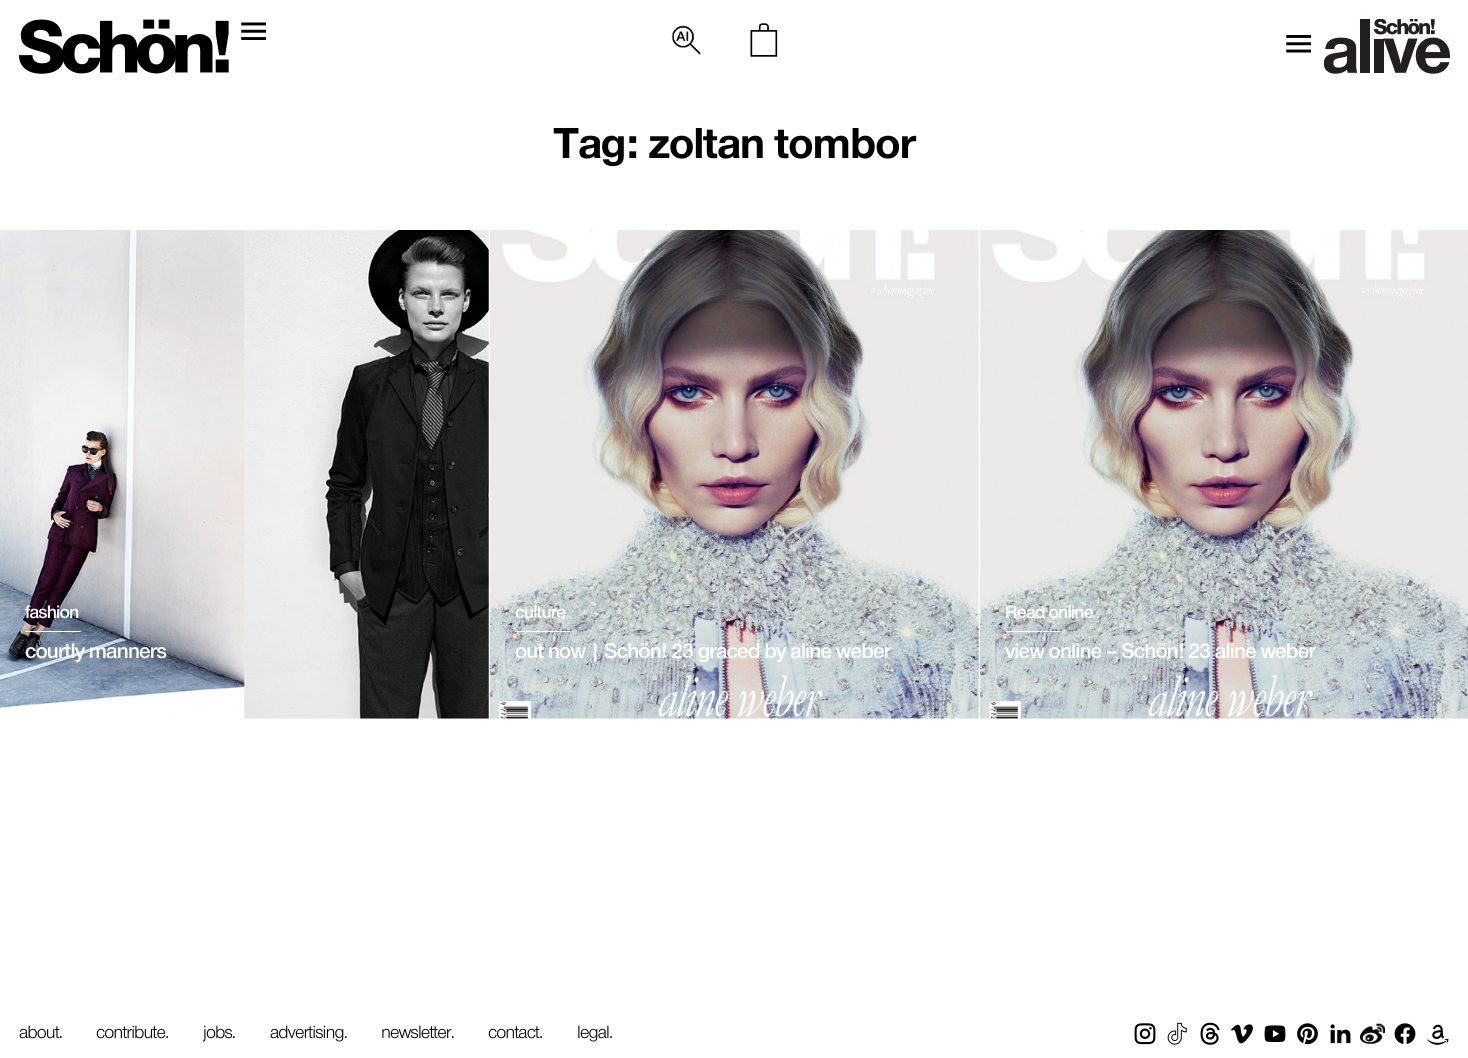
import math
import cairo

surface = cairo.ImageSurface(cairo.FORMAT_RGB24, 1468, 1058)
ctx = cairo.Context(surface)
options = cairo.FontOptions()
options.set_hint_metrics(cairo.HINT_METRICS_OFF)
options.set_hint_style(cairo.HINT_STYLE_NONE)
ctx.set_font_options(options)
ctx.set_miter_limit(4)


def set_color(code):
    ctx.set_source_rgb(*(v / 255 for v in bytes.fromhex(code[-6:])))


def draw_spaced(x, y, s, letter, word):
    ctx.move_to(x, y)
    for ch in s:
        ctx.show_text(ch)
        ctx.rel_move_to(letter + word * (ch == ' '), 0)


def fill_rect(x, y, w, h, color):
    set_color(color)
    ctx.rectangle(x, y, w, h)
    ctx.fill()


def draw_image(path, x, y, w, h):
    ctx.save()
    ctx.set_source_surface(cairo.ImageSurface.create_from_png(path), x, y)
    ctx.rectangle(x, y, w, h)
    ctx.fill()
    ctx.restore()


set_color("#ffffff")
ctx.paint()
draw_image("assets/img1.png", 19, 19, 210, 55)
draw_image("assets/img2.png", 241, 22, 25, 18)
draw_image("assets/img3.png", 671, 25, 30, 30)
draw_image("assets/img4.png", 750, 23, 28, 34)
draw_image("assets/img5.png", 1286, 35, 25, 18)
draw_image("assets/img6.png", 1324, 19, 126, 55)
ctx.select_font_face("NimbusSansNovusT", cairo.FONT_SLANT_NORMAL, cairo.FONT_WEIGHT_BOLD)
ctx.set_font_size(45)
set_color("#000000")
draw_spaced(553, 158, "Tag: zoltan tombor", -0.9, 0)
draw_image("assets/img7.png", 0, 230, 489, 489)
ctx.select_font_face("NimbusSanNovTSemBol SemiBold")
ctx.set_font_size(18.75)
set_color("#ffffff")
draw_spaced(25, 618, "fashion", -0.9, 0)
fill_rect(25, 631, 56, 1, "#ffffff")
ctx.set_font_size(22)
draw_spaced(25, 658, "courtly manners", -0.9, 0)
draw_image("assets/img8.png", 490, 230, 489, 489)
ctx.set_font_size(18.75)
draw_spaced(515, 618, "culture", -0.9, 0)
fill_rect(515, 631, 56, 1, "#ffffff")
ctx.set_font_size(22)
draw_spaced(515, 658, "out now | Schön! 23 graced by aline weber", -0.9, 0)
draw_image("assets/img9.png", 980, 230, 488, 489)
ctx.set_font_size(18.75)
draw_spaced(1005, 618, "Read online", -0.9, 0)
fill_rect(1005, 631, 56, 1, "#ffffff")
ctx.set_font_size(22)
draw_spaced(1005, 658, "view online – Schön! 23 aline weber", -0.9, 0)
ctx.select_font_face("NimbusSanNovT")
ctx.set_font_size(18.5)
set_color("#000000")
draw_spaced(19, 1038, "about.", -0.9, 0)
draw_spaced(96, 1038, "contribute.", -0.9, 0)
draw_spaced(203, 1038, "jobs.", -0.9, 0)
draw_spaced(270, 1038, "advertising.", -0.9, 0)
draw_spaced(381, 1038, "newsletter.", -0.9, 0)
draw_spaced(488, 1038, "contact.", -0.9, 0)
draw_spaced(577, 1038, "legal.", -0.9, 0)
draw_image("assets/img10.png", 1134, 1023, 22, 22)
draw_image("assets/img11.png", 1167, 1022, 20, 23)
draw_image("assets/img12.png", 1200, 1022, 20, 23)
draw_image("assets/img13.png", 1231, 1024, 22, 20)
draw_image("assets/img14.png", 1264, 1025, 22, 18)
draw_image("assets/img15.png", 1297, 1023, 21, 22)
draw_image("assets/img16.png", 1330, 1024, 21, 20)
draw_image("assets/img17.png", 1360, 1023, 25, 21)
draw_image("assets/img18.png", 1394, 1023, 22, 21)
draw_image("assets/img19.png", 1427, 1024, 22, 21)
surface.write_to_png("output.png")
